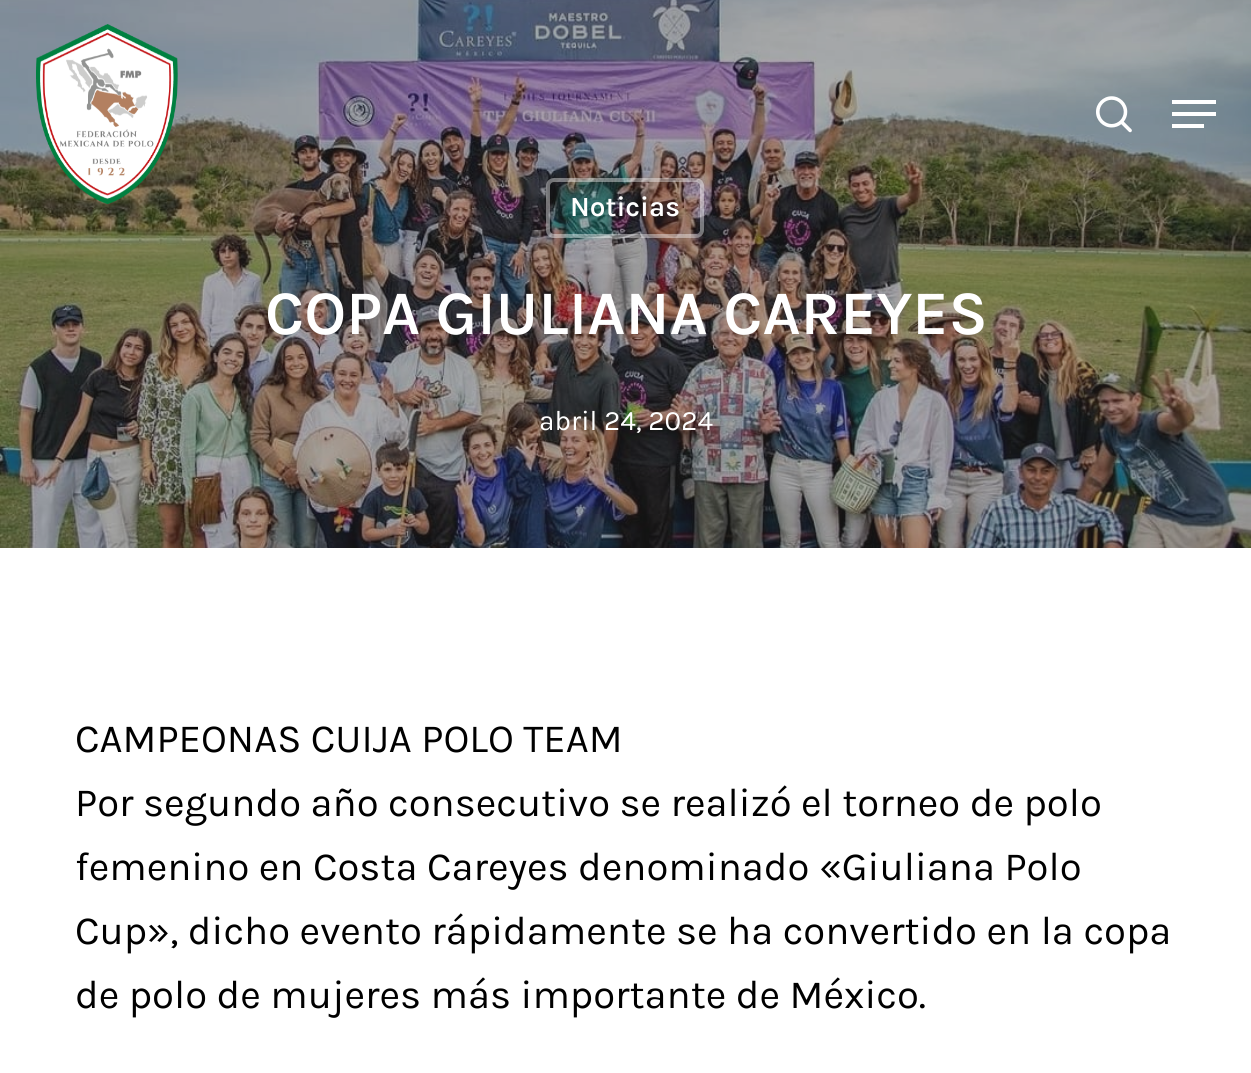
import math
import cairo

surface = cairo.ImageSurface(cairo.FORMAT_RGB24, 1251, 1073)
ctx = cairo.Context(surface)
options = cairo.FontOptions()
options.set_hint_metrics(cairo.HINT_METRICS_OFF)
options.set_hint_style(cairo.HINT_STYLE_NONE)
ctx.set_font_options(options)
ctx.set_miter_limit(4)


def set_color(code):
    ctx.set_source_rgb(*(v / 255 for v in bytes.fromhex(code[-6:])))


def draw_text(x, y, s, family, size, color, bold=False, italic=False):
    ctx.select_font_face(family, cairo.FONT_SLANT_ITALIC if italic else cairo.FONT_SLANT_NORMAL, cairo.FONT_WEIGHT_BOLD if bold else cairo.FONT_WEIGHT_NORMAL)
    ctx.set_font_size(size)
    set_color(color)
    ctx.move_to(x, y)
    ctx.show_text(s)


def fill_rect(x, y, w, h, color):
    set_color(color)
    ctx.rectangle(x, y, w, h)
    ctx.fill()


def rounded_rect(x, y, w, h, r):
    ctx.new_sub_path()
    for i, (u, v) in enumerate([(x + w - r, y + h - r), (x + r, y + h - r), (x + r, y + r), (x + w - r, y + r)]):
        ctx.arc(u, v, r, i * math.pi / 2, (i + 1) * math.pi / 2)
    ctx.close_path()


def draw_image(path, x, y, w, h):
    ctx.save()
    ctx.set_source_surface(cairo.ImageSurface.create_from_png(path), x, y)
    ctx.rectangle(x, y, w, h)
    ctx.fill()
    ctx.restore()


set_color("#ffffff")
ctx.paint()
draw_image("assets/img3.png", 0, 0, 1251, 548)
draw_image("assets/img1.png", 36, 24, 142, 180)
draw_image("assets/img2.png", 1096, 96, 36, 37)
fill_rect(1172, 100, 44, 4, "#ffffff")
fill_rect(1172, 124, 32, 4, "#ffffff")
fill_rect(1172, 112, 44, 4, "#ffffff")
rounded_rect(548, 180, 154, 56, 6)
ctx.set_source_rgba(1, 1, 1, 0.4)
ctx.set_line_width(4)
ctx.stroke()
draw_text(570, 216, "Noticias", "Karla SemiBold", 28, "#ffffff")
draw_text(265, 334, "COPA GIULIANA CAREYES", "Karla SemiBold", 62.4, "#ffffff")
draw_text(539, 430, "abril 24, 2024", "Karla", 28, "#ffffff")
draw_text(75, 752, "CAMPEONAS CUIJA POLO TEAM", "Karla", 40, "#000000")
draw_text(75, 816, "Por segundo año consecutivo se realizó el torneo de polo", "Karla", 40, "#000000")
draw_text(75, 880, "femenino en Costa Careyes denominado «Giuliana Polo", "Karla", 40, "#000000")
draw_text(75, 944, "Cup», dicho evento rápidamente se ha convertido en la copa", "Karla", 40, "#000000")
draw_text(75, 1008, "de polo de mujeres más importante de México.", "Karla", 40, "#000000")
surface.write_to_png("output.png")
